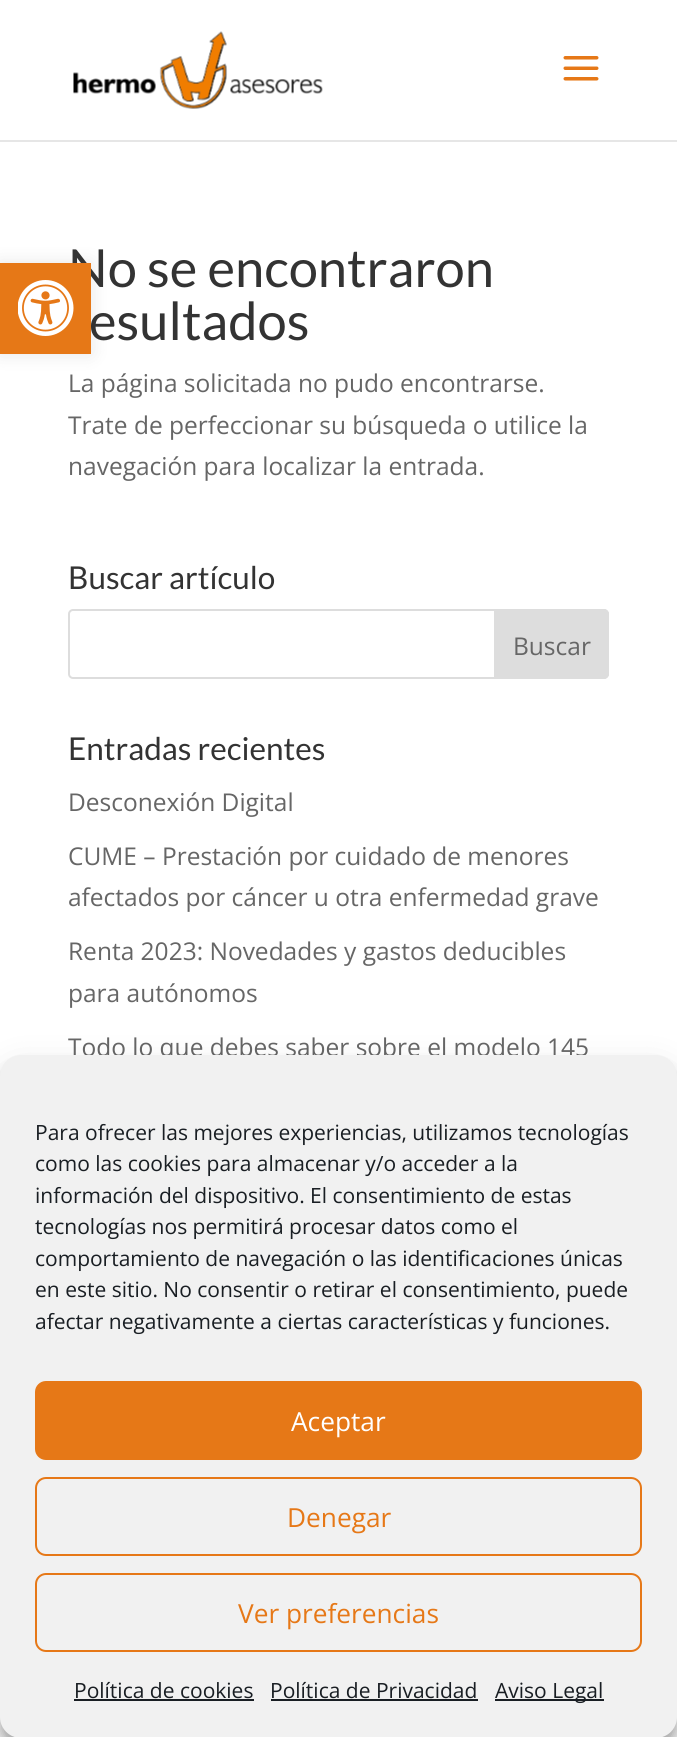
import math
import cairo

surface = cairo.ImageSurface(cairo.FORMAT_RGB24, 677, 1737)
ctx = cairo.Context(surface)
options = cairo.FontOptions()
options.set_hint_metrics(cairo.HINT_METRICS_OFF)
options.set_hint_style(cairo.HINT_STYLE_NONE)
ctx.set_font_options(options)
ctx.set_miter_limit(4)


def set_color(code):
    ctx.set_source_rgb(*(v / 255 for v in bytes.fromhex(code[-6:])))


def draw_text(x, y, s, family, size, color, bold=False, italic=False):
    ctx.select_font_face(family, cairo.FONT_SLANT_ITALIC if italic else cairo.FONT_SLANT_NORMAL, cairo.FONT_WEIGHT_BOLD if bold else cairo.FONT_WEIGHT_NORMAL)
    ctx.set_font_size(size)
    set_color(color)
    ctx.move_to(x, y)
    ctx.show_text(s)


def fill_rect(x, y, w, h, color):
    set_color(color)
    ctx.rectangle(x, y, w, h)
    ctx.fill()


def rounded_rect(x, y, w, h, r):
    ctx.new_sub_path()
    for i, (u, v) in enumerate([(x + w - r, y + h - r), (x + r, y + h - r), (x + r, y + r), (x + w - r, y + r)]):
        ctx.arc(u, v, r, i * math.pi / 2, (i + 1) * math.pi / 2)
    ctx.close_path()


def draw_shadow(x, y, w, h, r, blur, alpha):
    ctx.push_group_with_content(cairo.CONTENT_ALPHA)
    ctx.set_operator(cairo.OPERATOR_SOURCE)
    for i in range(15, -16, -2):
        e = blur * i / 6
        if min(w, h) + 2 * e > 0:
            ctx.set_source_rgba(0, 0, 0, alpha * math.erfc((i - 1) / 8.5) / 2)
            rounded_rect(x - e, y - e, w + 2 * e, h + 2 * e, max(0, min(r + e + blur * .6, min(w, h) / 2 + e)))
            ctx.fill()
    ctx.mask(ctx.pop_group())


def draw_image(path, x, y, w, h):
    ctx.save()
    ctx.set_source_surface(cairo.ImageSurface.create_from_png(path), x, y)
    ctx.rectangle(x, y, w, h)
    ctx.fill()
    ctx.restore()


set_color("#ffffff")
ctx.paint()
set_color("#000000")
draw_shadow(0, 263, 91, 91, 0, 9, 0.1)
draw_text(68, 287, "No se encontraron", "Lato", 52.5, "#333333")
draw_text(89, 340, "esultados", "Lato", 52.5, "#333333")
fill_rect(0, 263, 91, 91, "#e67817")
draw_image("assets/img1.png", 18, 280, 56, 56)
fill_rect(0, 140, 677, 2, "#e6e6e6")
draw_image("assets/img2.png", 73, 31, 250, 78)
draw_image("assets/img3.png", 563, 56, 36, 25)
draw_text(68, 392, "La página solicitada no pudo encontrarse.", "Open Sans", 24.5, "#666666")
draw_text(68, 434, "Trate de perfeccionar su búsqueda o utilice la", "Open Sans", 24.5, "#666666")
draw_text(68, 475, "navegación para localizar la entrada.", "Open Sans", 24.5, "#666666")
draw_text(68, 589, "Buscar artículo", "Lato", 31.5, "#333333")
rounded_rect(69, 610, 539, 68, 4)
set_color("#dddddd")
ctx.stroke()
ctx.new_path()
ctx.move_to(495, 610)
ctx.line_to(604, 610)
ctx.curve_to(606, 610, 608, 612, 608, 614)
ctx.line_to(608, 674)
ctx.curve_to(608, 676, 606, 678, 604, 678)
ctx.line_to(495, 678)
ctx.close_path()
ctx.fill_preserve()
ctx.stroke()
draw_text(513, 655, "Buscar", "Open Sans", 24.5, "#666666")
draw_text(68, 760, "Entradas recientes", "Lato", 31.5, "#333333")
draw_text(68, 811, "Desconexión Digital", "Open Sans", 24.5, "#666666")
draw_text(68, 865, "CUME – Prestación por cuidado de menores", "Open Sans", 24.5, "#666666")
draw_text(68, 906, "afectados por cáncer u otra enfermedad grave", "Open Sans", 24.5, "#666666")
draw_text(68, 960, "Renta 2023: Novedades y gastos deducibles", "Open Sans", 24.5, "#666666")
draw_text(68, 1002, "para autónomos", "Open Sans", 24.5, "#666666")
draw_text(68, 1056, "Todo lo que debes saber sobre el modelo 145", "Open Sans", 24.5, "#666666")
set_color("#000000")
draw_shadow(0, 1066, 677, 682, 21, 5, 0.23)
draw_shadow(0, 1073, 677, 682, 21, 17.5, 0.19)
set_color("#f1f1f1")
rounded_rect(0, 1055, 677, 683, 21)
ctx.fill()
draw_text(35, 1140, "Para ofrecer las mejores experiencias, utilizamos tecnologías", "Open Sans", 21, "#191e23")
draw_text(35, 1171, "como las cookies para almacenar y/o acceder a la", "Open Sans", 21, "#191e23")
draw_text(35, 1203, "información del dispositivo. El consentimiento de estas", "Open Sans", 21, "#191e23")
draw_text(35, 1234, "tecnologías nos permitirá procesar datos como el", "Open Sans", 21, "#191e23")
draw_text(35, 1266, "comportamiento de navegación o las identificaciones únicas", "Open Sans", 21, "#191e23")
draw_text(35, 1297, "en este sitio. No consentir o retirar el consentimiento, puede", "Open Sans", 21, "#191e23")
draw_text(35, 1329, "afectar negativamente a ciertas características y funciones.", "Open Sans", 21, "#191e23")
set_color("#e67817")
rounded_rect(36, 1382, 605, 77, 10)
ctx.fill_preserve()
ctx.stroke()
draw_text(291, 1431, "Aceptar", "Open Sans", 26.25, "#ffffff")
rounded_rect(36, 1478, 605, 77, 10)
set_color("#e67817")
ctx.stroke()
draw_text(287, 1527, "Denegar", "Open Sans", 26.25, "#e67817")
rounded_rect(36, 1574, 605, 77, 10)
ctx.stroke()
draw_text(238, 1623, "Ver preferencias", "Open Sans", 26.25, "#e67817")
draw_text(74, 1698, "Política de cookies", "Open Sans", 21, "#191e23")
fill_rect(74, 1699, 180, 2, "#191e23")
draw_text(270, 1698, "Política de Privacidad", "Open Sans", 21, "#191e23")
fill_rect(271, 1699, 207, 2, "#191e23")
fill_rect(495, 1699, 109, 2, "#191e23")
draw_text(495, 1698, "Aviso Legal", "Open Sans", 21, "#191e23")
surface.write_to_png("output.png")
